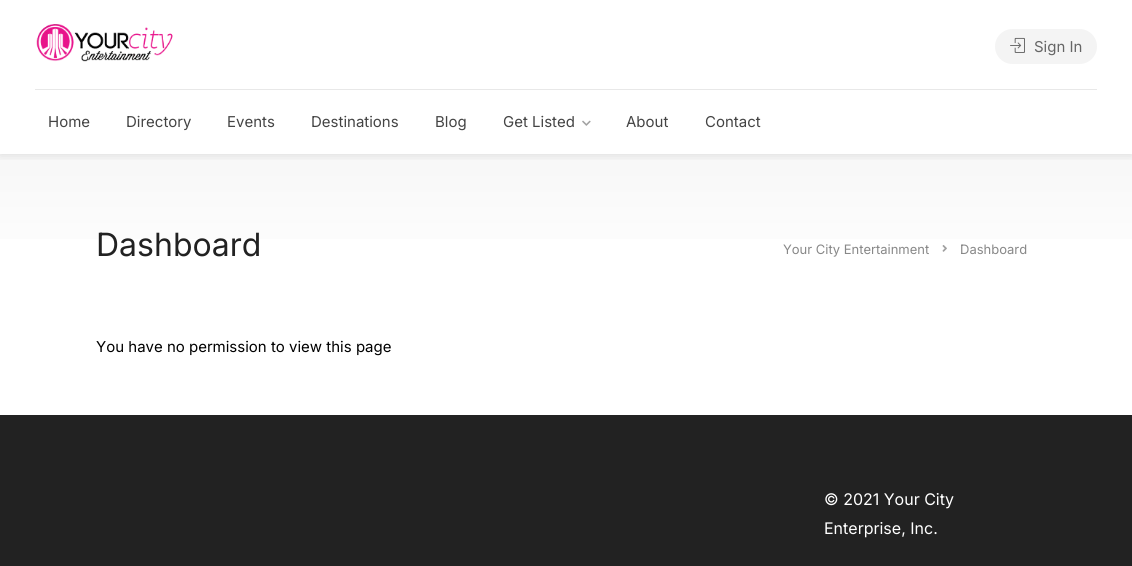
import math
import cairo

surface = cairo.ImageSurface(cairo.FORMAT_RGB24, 1132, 566)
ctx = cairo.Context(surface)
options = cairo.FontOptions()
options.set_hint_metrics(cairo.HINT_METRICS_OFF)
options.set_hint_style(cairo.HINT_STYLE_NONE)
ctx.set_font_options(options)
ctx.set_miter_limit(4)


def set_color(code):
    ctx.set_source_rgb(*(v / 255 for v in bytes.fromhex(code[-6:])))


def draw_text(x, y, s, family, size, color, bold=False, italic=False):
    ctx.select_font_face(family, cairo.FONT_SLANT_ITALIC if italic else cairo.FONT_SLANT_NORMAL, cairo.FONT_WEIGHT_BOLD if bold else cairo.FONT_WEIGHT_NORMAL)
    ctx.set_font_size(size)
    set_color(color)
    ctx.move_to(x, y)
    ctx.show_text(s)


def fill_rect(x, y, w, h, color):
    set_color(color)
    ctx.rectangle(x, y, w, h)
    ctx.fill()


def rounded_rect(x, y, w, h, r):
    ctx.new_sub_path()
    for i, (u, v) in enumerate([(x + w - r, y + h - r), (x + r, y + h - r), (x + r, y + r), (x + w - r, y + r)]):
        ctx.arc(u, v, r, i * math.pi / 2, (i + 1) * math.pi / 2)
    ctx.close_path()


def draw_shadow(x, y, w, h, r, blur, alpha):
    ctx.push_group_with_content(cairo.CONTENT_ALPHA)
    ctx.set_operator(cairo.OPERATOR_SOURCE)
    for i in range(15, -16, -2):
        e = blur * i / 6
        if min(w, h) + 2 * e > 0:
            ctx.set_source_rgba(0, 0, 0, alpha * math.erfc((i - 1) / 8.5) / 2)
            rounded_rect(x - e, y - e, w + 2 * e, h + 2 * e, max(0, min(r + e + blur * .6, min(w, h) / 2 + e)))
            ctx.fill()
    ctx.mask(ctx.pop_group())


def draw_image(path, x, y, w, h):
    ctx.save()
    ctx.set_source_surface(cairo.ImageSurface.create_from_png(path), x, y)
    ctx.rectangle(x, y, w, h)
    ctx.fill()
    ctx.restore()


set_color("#ffffff")
ctx.paint()
gradient = cairo.LinearGradient(566, 154, 566, 278)
gradient.add_color_stop_rgba(0, 0.969, 0.969, 0.969, 1)
gradient.add_color_stop_rgba(1, 1, 1, 1, 1)
ctx.set_source(gradient)
ctx.rectangle(0, 154, 1132, 85)
ctx.fill()
ctx.save()
ctx.rectangle(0, 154, 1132, 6)
ctx.clip()
set_color("#000000")
draw_shadow(0, 0, 1132, 154, 0, 6, 0.12)
ctx.restore()
set_color("#f4f4f4")
rounded_rect(995, 29, 102, 35, 17.5)
ctx.fill()
draw_image("assets/img1.png", 1010, 37, 15, 16)
draw_text(1034, 52, "Sign In", "Inter", 15, "#666666")
draw_image("assets/img2.png", 36, 24, 137, 38)
fill_rect(35, 89, 1062, 1, "#e8e8e8")
draw_text(48, 127, "Home", "Inter", 15, "#444444")
draw_text(126, 127, "Directory", "Inter", 15, "#444444")
draw_text(227, 127, "Events", "Inter", 15, "#444444")
draw_text(311, 127, "Destinations", "Inter", 15, "#444444")
draw_text(435, 127, "Blog", "Inter", 15, "#444444")
draw_text(503, 127, "Get Listed", "Inter", 15, "#444444")
draw_image("assets/img3.png", 582, 120, 9, 6)
draw_text(626, 127, "About", "Inter", 15, "#444444")
draw_text(705, 127, "Contact", "Inter", 15, "#444444")
draw_text(96, 256, "Dashboard", "Inter", 32, "#222222")
draw_text(783, 254, "Your City Entertainment", "Inter", 13, "#888888")
draw_image("assets/img4.png", 942, 245, 5, 7)
draw_text(960, 254, "Dashboard", "Inter", 13, "#888888")
draw_text(96, 352, "You have no permission to view this page", "Inter", 15, "#000000")
fill_rect(0, 415, 1132, 151, "#222222")
draw_text(824, 505, "© 2021 Your City", "Inter", 16, "#ffffff")
draw_text(824, 534, "Enterprise, Inc.", "Inter", 16, "#ffffff")
surface.write_to_png("output.png")
